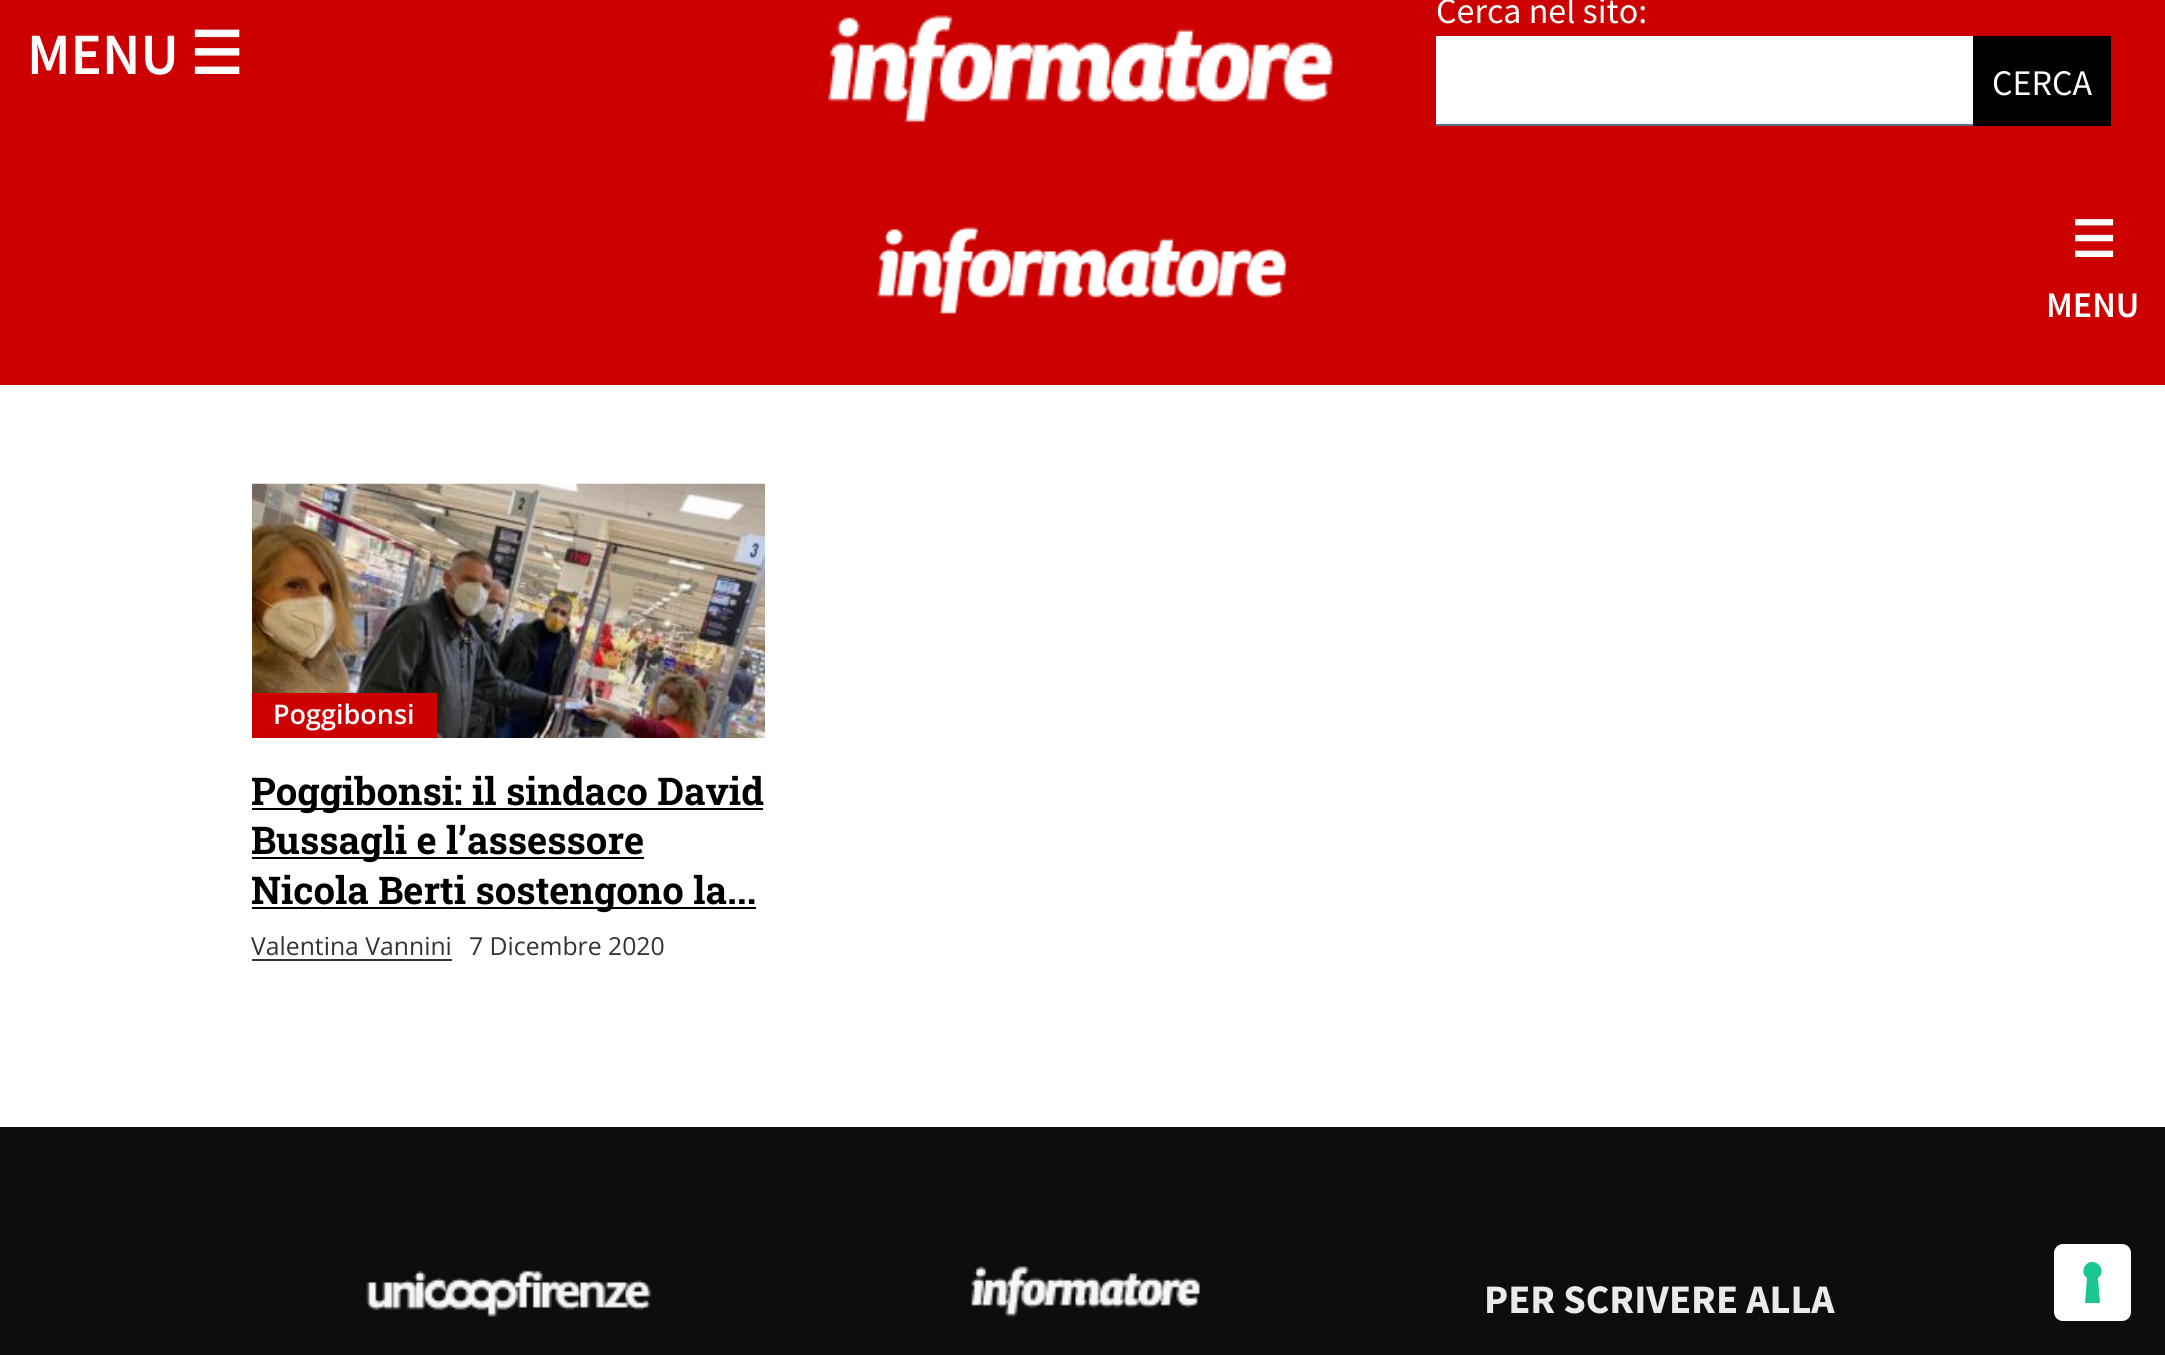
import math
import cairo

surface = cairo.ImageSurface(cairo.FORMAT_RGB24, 2165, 1355)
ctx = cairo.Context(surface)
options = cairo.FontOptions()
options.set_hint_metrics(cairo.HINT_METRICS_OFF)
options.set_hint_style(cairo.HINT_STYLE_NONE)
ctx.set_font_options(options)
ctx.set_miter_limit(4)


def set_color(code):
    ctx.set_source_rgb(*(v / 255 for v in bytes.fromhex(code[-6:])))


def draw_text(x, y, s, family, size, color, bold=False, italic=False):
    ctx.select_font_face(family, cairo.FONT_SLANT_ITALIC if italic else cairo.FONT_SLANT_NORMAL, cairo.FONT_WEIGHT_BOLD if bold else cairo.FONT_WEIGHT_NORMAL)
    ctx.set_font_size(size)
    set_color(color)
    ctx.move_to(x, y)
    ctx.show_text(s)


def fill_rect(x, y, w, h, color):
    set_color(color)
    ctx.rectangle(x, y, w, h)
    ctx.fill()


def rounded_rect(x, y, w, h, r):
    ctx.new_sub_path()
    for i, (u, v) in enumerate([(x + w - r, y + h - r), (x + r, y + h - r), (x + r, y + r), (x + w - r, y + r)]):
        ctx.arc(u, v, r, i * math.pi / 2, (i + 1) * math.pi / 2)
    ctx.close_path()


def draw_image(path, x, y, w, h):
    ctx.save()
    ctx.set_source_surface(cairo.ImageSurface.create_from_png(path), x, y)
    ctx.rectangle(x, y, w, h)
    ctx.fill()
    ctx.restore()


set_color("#ffffff")
ctx.paint()
fill_rect(0, 0, 2165, 385, "#cc0000")
draw_text(27, 74, "MENU", "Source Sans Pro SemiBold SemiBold", 58.5, "#ffffff")
draw_text(190, 74, "☰", "DejaVu Sans", 58.5, "#ffffff", bold=True)
draw_image("assets/img1.png", 828, 15, 505, 108)
draw_text(1436, 23, "Cerca nel sito:", "Source Sans Pro", 36, "#ffffff")
fill_rect(1436, 36, 537, 88, "#ffffff")
fill_rect(1436, 124, 537, 2, "#5d7083")
fill_rect(1973, 36, 138, 90, "#000000")
draw_text(1992, 95, "CERCA", "Source Sans Pro", 36, "#ffffff")
draw_image("assets/img2.png", 877, 227, 410, 87)
draw_text(2071, 257, "☰", "DejaVu Sans", 50, "#ffffff", bold=True)
draw_text(2046, 317, "MENU", "Source Sans Pro SemiBold SemiBold", 36, "#ffffff")
draw_image("assets/img3.png", 252, 483, 513, 255)
fill_rect(252, 693, 185, 45, "#cc0000")
draw_text(273, 724, "Poggibonsi", "Open Sans SemiBold", 27, "#ffffff")
fill_rect(252, 808, 511, 2, "#000000")
draw_text(251, 805, "Poggibonsi: il sindaco David", "Roboto Slab", 38.25, "#000000", bold=True)
fill_rect(252, 857, 392, 2, "#000000")
draw_text(251, 854, "Bussagli e l’assessore", "Roboto Slab", 38.25, "#000000", bold=True)
fill_rect(252, 907, 504, 2, "#000000")
draw_text(251, 904, "Nicola Berti sostengono la...", "Roboto Slab", 38.25, "#000000", bold=True)
draw_text(251, 955, "Valentina Vannini", "Open Sans", 24.75, "#333333")
fill_rect(252, 959, 200, 2, "#333333")
draw_text(469, 955, "7 Dicembre 2020", "Open Sans", 24.75, "#333333")
fill_rect(0, 1127, 2165, 228, "#0d0d0d")
draw_image("assets/img4.png", 366, 1270, 285, 47)
draw_image("assets/img5.png", 971, 1266, 229, 51)
draw_text(1484, 1313, "PER SCRIVERE ALLA", "Source Sans Pro", 40.5, "#eaeaea", bold=True)
set_color("#ffffff")
rounded_rect(2054, 1244, 77, 77, 9)
ctx.fill()
set_color("#1cc691")
ctx.set_fill_rule(cairo.FILL_RULE_EVEN_ODD)
ctx.new_path()
ctx.move_to(2092, 1262)
ctx.curve_to(2101, 1262, 2105, 1273, 2098, 1278)
ctx.line_to(2100, 1303)
ctx.line_to(2085, 1303)
ctx.line_to(2087, 1278)
ctx.curve_to(2080, 1273, 2084, 1262, 2092, 1262)
ctx.close_path()
ctx.fill()
surface.write_to_png("output.png")
